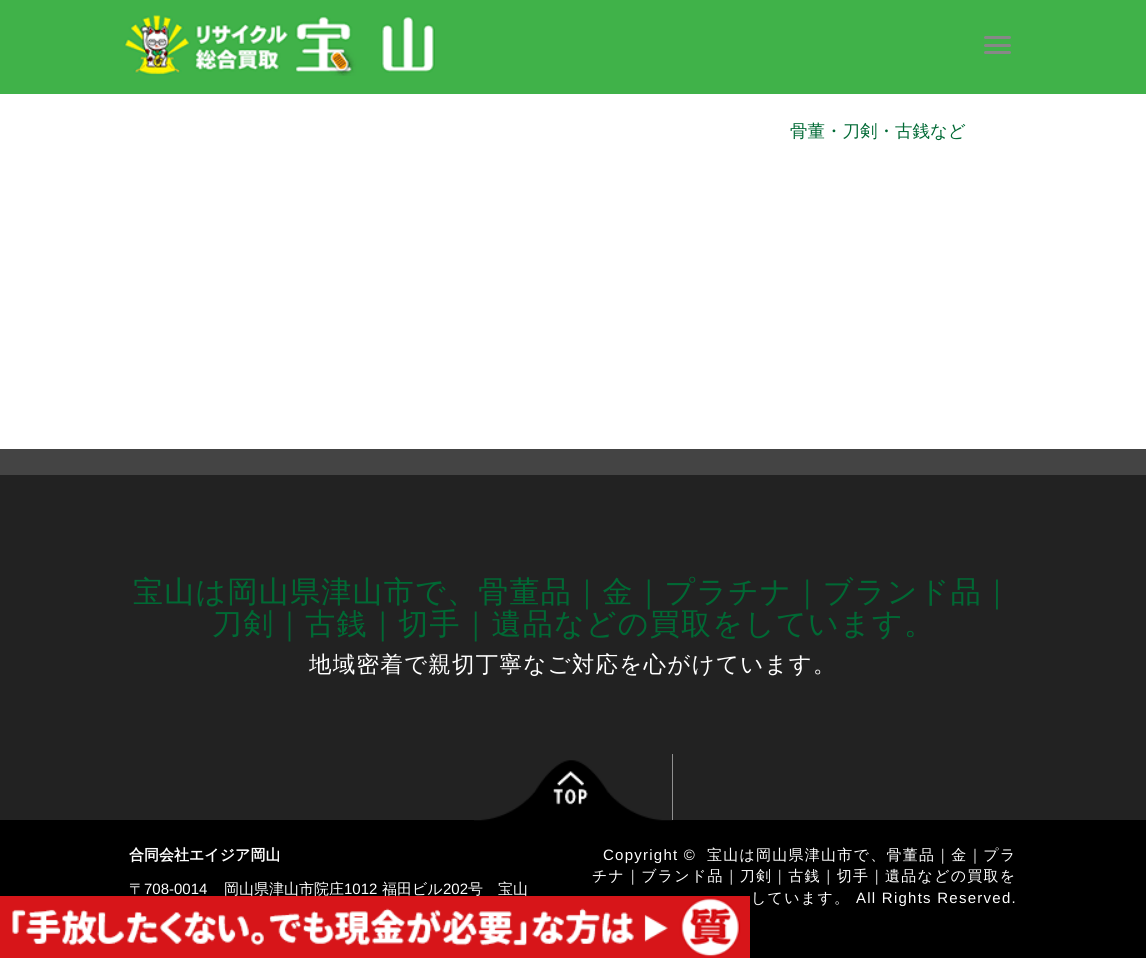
import math
import cairo

surface = cairo.ImageSurface(cairo.FORMAT_RGB24, 1146, 958)
ctx = cairo.Context(surface)
options = cairo.FontOptions()
options.set_hint_metrics(cairo.HINT_METRICS_OFF)
options.set_hint_style(cairo.HINT_STYLE_NONE)
ctx.set_font_options(options)
ctx.set_miter_limit(4)


def set_color(code):
    ctx.set_source_rgb(*(v / 255 for v in bytes.fromhex(code[-6:])))


def draw_text(x, y, s, family, size, color, bold=False, italic=False):
    ctx.select_font_face(family, cairo.FONT_SLANT_ITALIC if italic else cairo.FONT_SLANT_NORMAL, cairo.FONT_WEIGHT_BOLD if bold else cairo.FONT_WEIGHT_NORMAL)
    ctx.set_font_size(size)
    set_color(color)
    ctx.move_to(x, y)
    ctx.show_text(s)


def draw_spaced(x, y, s, letter, word):
    ctx.move_to(x, y)
    for ch in s:
        ctx.show_text(ch)
        ctx.rel_move_to(letter + word * (ch == ' '), 0)


def fill_rect(x, y, w, h, color):
    set_color(color)
    ctx.rectangle(x, y, w, h)
    ctx.fill()


def rounded_rect(x, y, w, h, r):
    ctx.new_sub_path()
    for i, (u, v) in enumerate([(x + w - r, y + h - r), (x + r, y + h - r), (x + r, y + r), (x + w - r, y + r)]):
        ctx.arc(u, v, r, i * math.pi / 2, (i + 1) * math.pi / 2)
    ctx.close_path()


def draw_image(path, x, y, w, h):
    ctx.save()
    ctx.set_source_surface(cairo.ImageSurface.create_from_png(path), x, y)
    ctx.rectangle(x, y, w, h)
    ctx.fill()
    ctx.restore()


set_color("#ffffff")
ctx.paint()
fill_rect(0, 0, 1146, 94, "#40b249")
draw_image("assets/img1.png", 123, 15, 312, 61)
set_color("#888888")
rounded_rect(984, 36, 27, 3, 1.5)
ctx.fill()
rounded_rect(984, 44, 27, 3, 1.5)
ctx.fill()
rounded_rect(984, 51, 27, 3, 1.5)
ctx.fill()
draw_text(790, 137, "骨董・刀剣・古銭など", "WenQuanYi Zen Hei Medium", 17.5, "#006934")
fill_rect(0, 449, 1146, 26, "#444444")
fill_rect(0, 475, 1146, 345, "#222222")
ctx.set_font_size(30)
set_color("#006934")
draw_spaced(133, 602, "宝山は岡山県津山市で、骨董品｜金｜プラチナ｜ブランド品｜", 1.25, 0)
draw_spaced(212, 634, "刀剣｜古銭｜切手｜遺品などの買取をしています。", 1.25, 0)
ctx.set_font_size(22.5)
set_color("#ffffff")
draw_spaced(309, 672, "地域密着で親切丁寧なご対応を心がけています。", 1.25, 0)
fill_rect(553, 754, 120, 66, "#ffffff")
fill_rect(0, 820, 1146, 138, "#000000")
draw_image("assets/img2.png", 474, 754, 199, 67)
draw_text(129, 860, "合同会社エイジア岡山", "WenQuanYi Zen Hei", 15, "#ffffff", bold=True)
draw_text(129, 894, "〒", "WenQuanYi Zen Hei Medium", 15, "#ffffff")
draw_text(144, 894, "708-0014", "Liberation Sans", 15, "#ffffff")
draw_text(224, 894, "岡山県津山市院庄", "WenQuanYi Zen Hei Medium", 15, "#ffffff")
draw_text(344, 894, "1012", "Liberation Sans", 15, "#ffffff")
draw_text(382, 894, "福田ビル", "WenQuanYi Zen Hei Medium", 15, "#ffffff")
draw_text(443, 894, "202", "Liberation Sans", 15, "#ffffff")
draw_text(468, 894, "号　宝山", "WenQuanYi Zen Hei Medium", 15, "#ffffff")
ctx.select_font_face("Liberation Sans")
draw_spaced(603, 860, "Copyright ©", 1.25, 0)
ctx.select_font_face("WenQuanYi Zen Hei Medium")
draw_spaced(707, 860, "宝山は岡山県津山市で、骨董品｜金｜プラ", 1.25, 0)
draw_spaced(592, 881, "チナ｜ブランド品｜刀剣｜古銭｜切手｜遺品などの買取を", 1.25, 0)
draw_spaced(751, 903, "しています。", 1.25, 0)
ctx.select_font_face("Liberation Sans")
draw_spaced(856, 903, "All Rights Reserved.", 1.25, 0)
draw_image("assets/img3.png", 0, 896, 750, 62)
surface.write_to_png("output.png")
